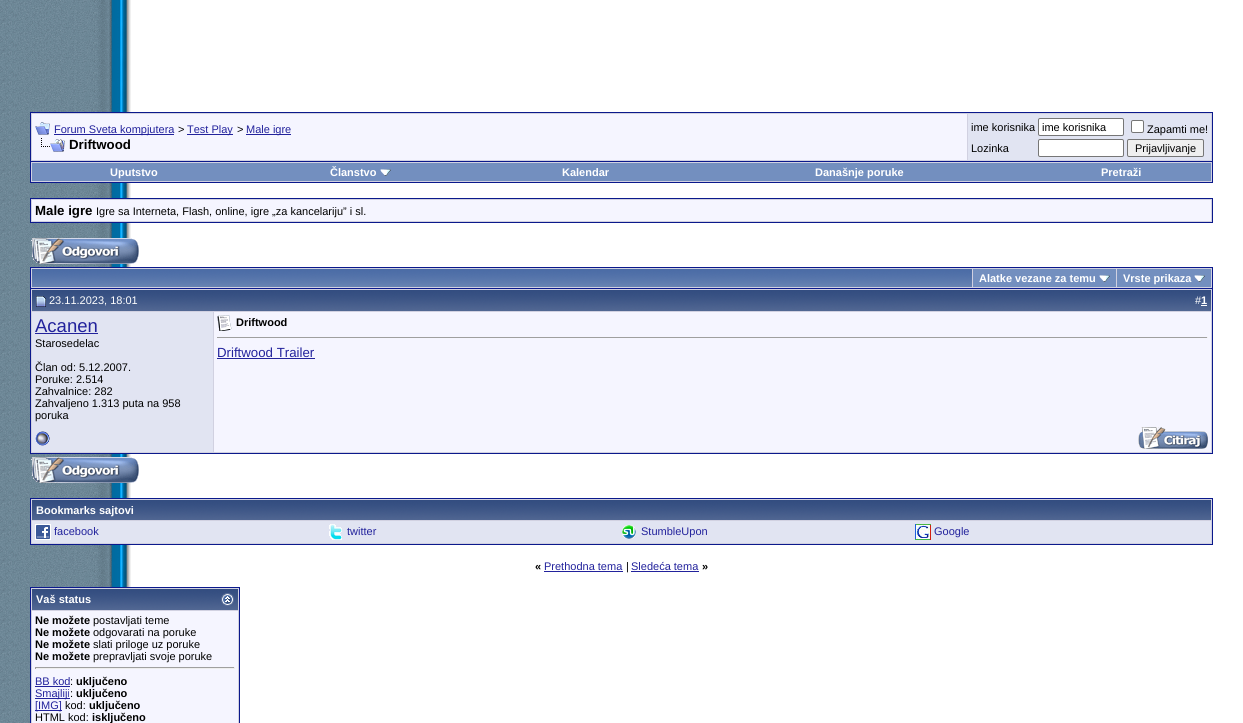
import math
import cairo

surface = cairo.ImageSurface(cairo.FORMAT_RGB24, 1243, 723)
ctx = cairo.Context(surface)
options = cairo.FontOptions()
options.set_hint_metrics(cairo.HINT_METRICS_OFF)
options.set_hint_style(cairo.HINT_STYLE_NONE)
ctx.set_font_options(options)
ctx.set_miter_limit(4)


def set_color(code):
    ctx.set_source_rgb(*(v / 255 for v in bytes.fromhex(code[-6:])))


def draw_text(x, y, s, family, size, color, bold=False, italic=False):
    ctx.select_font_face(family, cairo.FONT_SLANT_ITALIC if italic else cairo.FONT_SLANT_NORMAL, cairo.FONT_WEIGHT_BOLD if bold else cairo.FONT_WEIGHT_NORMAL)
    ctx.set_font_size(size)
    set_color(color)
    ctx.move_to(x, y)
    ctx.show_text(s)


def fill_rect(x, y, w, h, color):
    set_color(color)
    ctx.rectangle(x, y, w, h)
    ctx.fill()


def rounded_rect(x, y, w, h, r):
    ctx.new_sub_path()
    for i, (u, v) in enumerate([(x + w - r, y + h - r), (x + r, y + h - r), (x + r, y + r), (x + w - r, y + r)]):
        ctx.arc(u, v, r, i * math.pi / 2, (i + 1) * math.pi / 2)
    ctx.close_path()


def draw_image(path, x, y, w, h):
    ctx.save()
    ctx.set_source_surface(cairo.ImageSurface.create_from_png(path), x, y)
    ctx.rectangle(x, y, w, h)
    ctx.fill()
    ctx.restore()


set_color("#ffffff")
ctx.paint()
draw_image("assets/img1.png", 0, 0, 131, 723)
set_color("#d1d1e1")
ctx.rectangle(30.5, 112.5, 1182, 49)
ctx.fill_preserve()
set_color("#0b198c")
ctx.set_line_width(1)
ctx.stroke()
fill_rect(32, 114, 935, 46, "#f5f5ff")
draw_image("assets/img2.png", 35, 122, 15, 13)
fill_rect(54, 134, 120, 1, "#22229c")
draw_text(54, 133, "Forum Sveta kompjutera", "Liberation Sans", 11, "#22229c")
draw_text(178, 133, ">", "Liberation Sans", 11, "#000000")
fill_rect(187, 134, 46, 1, "#22229c")
draw_text(187, 133, "Test Play", "Liberation Sans", 11, "#22229c")
draw_text(237, 133, ">", "Liberation Sans", 11, "#000000")
fill_rect(246, 134, 45, 1, "#22229c")
draw_text(246, 133, "Male igre", "Liberation Sans", 11, "#22229c")
draw_image("assets/img3.png", 41, 138, 24, 14)
draw_text(69, 149, "Driftwood", "Liberation Sans", 13.25, "#000000", bold=True)
fill_rect(968, 114, 243, 46, "#e1e4f2")
draw_text(971, 131, "ime korisnika", "Liberation Sans", 11, "#000000")
set_color("#ffffff")
rounded_rect(1038.5, 118.5, 85, 17, 1.5)
ctx.fill_preserve()
set_color("#767676")
ctx.stroke()
draw_text(1042, 131, "ime korisnika", "Liberation Sans", 11, "#000000")
set_color("#ffffff")
rounded_rect(1131.5, 120.5, 12, 12, 1.5)
ctx.fill_preserve()
set_color("#767676")
ctx.stroke()
draw_text(1147, 133, "Zapamti me!", "Liberation Sans", 11, "#000000")
draw_text(971, 152, "Lozinka", "Liberation Sans", 11, "#000000")
set_color("#ffffff")
rounded_rect(1038.5, 139.5, 85, 17, 1.5)
ctx.fill_preserve()
set_color("#767676")
ctx.stroke()
set_color("#efefef")
rounded_rect(1127.5, 139.5, 76, 17, 1.5)
ctx.fill_preserve()
set_color("#767676")
ctx.stroke()
draw_text(1135, 152, "Prijavljivanje", "Liberation Sans", 11, "#000000")
fill_rect(31, 162, 1181, 20, "#d1d1e1")
fill_rect(1212, 162, 1, 21, "#0b198c")
fill_rect(30, 182, 1183, 1, "#0b198c")
fill_rect(30, 162, 1, 21, "#0b198c")
fill_rect(32, 163, 1179, 18, "#738fbf")
draw_text(110, 176, "Uputstvo", "Liberation Sans", 11, "#ffffff", bold=True)
draw_text(330, 176, "Članstvo", "Liberation Sans", 11, "#ffffff", bold=True)
draw_image("assets/img4.png", 380, 169, 11, 7)
draw_text(562, 176, "Kalendar", "Liberation Sans", 11, "#ffffff", bold=True)
draw_text(815, 176, "Današnje poruke", "Liberation Sans", 11, "#ffffff", bold=True)
draw_text(1101, 176, "Pretraži", "Liberation Sans", 11, "#ffffff", bold=True)
set_color("#d1d1e1")
ctx.rectangle(30.5, 198.5, 1182, 24)
ctx.fill_preserve()
set_color("#0b198c")
ctx.stroke()
fill_rect(32, 200, 1179, 21, "#f5f5ff")
draw_text(35, 215, "Male igre", "Liberation Sans", 13.25, "#000000", bold=True)
draw_text(96, 215, "Igre sa Interneta, Flash, online, igre „za kancelariju” i sl.", "Liberation Sans", 11, "#000000")
draw_image("assets/img5.png", 31, 238, 108, 26)
fill_rect(31, 268, 1181, 20, "#d1d1e1")
fill_rect(30, 267, 1183, 1, "#0b198c")
fill_rect(1212, 267, 1, 21, "#0b198c")
fill_rect(30, 267, 1, 21, "#0b198c")
draw_image("assets/img6.png", 32, 269, 940, 18)
fill_rect(973, 269, 143, 18, "#738fbf")
draw_text(979, 282, "Alatke vezane za temu", "Liberation Sans", 11, "#ffffff", bold=True)
draw_image("assets/img4.png", 1099, 275, 11, 7)
fill_rect(1117, 269, 94, 18, "#738fbf")
draw_text(1123, 282, "Vrste prikaza", "Liberation Sans", 11, "#ffffff", bold=True)
draw_image("assets/img4.png", 1194, 275, 11, 7)
ctx.rectangle(30.5, 288.5, 1182, 165)
set_color("#0b198c")
ctx.stroke()
draw_image("assets/img7.png", 32, 290, 182, 21)
fill_rect(31, 289, 1181, 1, "#d1d1e1")
fill_rect(31, 311, 183, 1, "#d1d1e1")
fill_rect(31, 289, 1, 135, "#d1d1e1")
draw_image("assets/img8.png", 36, 296, 10, 11)
draw_text(49, 304, "23.11.2023, 18:01", "Liberation Sans", 11, "#ffffff")
draw_image("assets/img9.png", 214, 290, 997, 21)
fill_rect(1211, 289, 1, 164, "#d1d1e1")
fill_rect(214, 311, 998, 1, "#d1d1e1")
draw_text(1195, 304, "#", "Liberation Sans", 11, "#ffffff")
draw_text(1201, 304, "1", "Liberation Sans", 11, "#ffffff", bold=True)
fill_rect(1201, 305, 6, 1, "#ffffff")
fill_rect(32, 312, 181, 140, "#e1e4f2")
fill_rect(213, 312, 1, 141, "#d1d1e1")
draw_text(35, 332, "Acanen", "Liberation Sans", 18.5, "#22229c")
fill_rect(35, 333, 63, 1, "#22229c")
draw_text(35, 347, "Starosedelac", "Liberation Sans", 11, "#000000")
draw_text(35, 371, "Član od: 5.12.2007.", "Liberation Sans", 11, "#000000")
draw_text(35, 383, "Poruke: 2.514", "Liberation Sans", 11, "#000000")
draw_text(35, 395, "Zahvalnice: 282", "Liberation Sans", 11, "#000000")
draw_text(35, 407, "Zahvaljeno 1.313 puta na 958", "Liberation Sans", 11, "#000000")
draw_text(35, 419, "poruka", "Liberation Sans", 11, "#000000")
fill_rect(214, 312, 997, 140, "#f5f5ff")
draw_image("assets/img10.png", 217, 315, 15, 16)
draw_text(236, 326, "Driftwood", "Liberation Sans", 11, "#000000", bold=True)
fill_rect(217, 337, 991, 1, "#9f9f9f")
fill_rect(1207, 337, 1, 1, "#eeeeee")
draw_text(217, 357, "Driftwood Trailer", "Liberation Sans", 13.25, "#22229c")
fill_rect(217, 358, 98, 1, "#22229c")
fill_rect(31, 452, 1181, 1, "#d1d1e1")
fill_rect(31, 424, 1, 29, "#d1d1e1")
draw_image("assets/img11.png", 35, 431, 15, 15)
draw_image("assets/img12.png", 1138, 427, 70, 22)
draw_image("assets/img13.png", 31, 457, 108, 26)
ctx.rectangle(30.5, 498.5, 1182, 46)
ctx.fill_preserve()
set_color("#0b198c")
ctx.stroke()
draw_image("assets/img14.png", 32, 500, 1179, 20)
draw_text(36, 514, "Bookmarks sajtovi", "Liberation Sans", 11, "#ffffff", bold=True)
fill_rect(32, 521, 1179, 22, "#e1e4f2")
draw_image("assets/img15.png", 35, 524, 16, 16)
draw_text(54, 535, "facebook", "Liberation Sans", 11, "#22229c")
draw_image("assets/img16.png", 329, 524, 13, 16)
draw_text(347, 535, "twitter", "Liberation Sans", 11, "#22229c")
draw_image("assets/img17.png", 622, 525, 14, 14)
draw_text(641, 535, "StumbleUpon", "Liberation Sans", 11, "#22229c")
draw_image("assets/img18.png", 915, 524, 16, 16)
draw_text(934, 535, "Google", "Liberation Sans", 11, "#22229c")
draw_text(535, 570, "«", "Liberation Sans", 11, "#000000", bold=True)
draw_text(544, 570, "Prethodna tema", "Liberation Sans", 11, "#22229c")
fill_rect(544, 571, 79, 1, "#22229c")
draw_text(626, 570, "|", "Liberation Sans", 11, "#000000")
draw_text(631, 570, "Sledeća tema", "Liberation Sans", 11, "#22229c")
fill_rect(631, 571, 68, 1, "#22229c")
draw_text(702, 570, "»", "Liberation Sans", 11, "#000000", bold=True)
set_color("#d1d1e1")
ctx.rectangle(30.5, 587.5, 209, 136)
ctx.fill_preserve()
set_color("#0b198c")
ctx.stroke()
draw_image("assets/img19.png", 32, 589, 206, 21)
draw_text(36, 603, "Vaš status", "Liberation Sans", 11, "#ffffff", bold=True)
draw_image("assets/img20.png", 221, 593, 13, 13)
fill_rect(32, 611, 206, 112, "#f5f5ff")
draw_text(35, 624, "Ne možete", "Liberation Sans", 11, "#000000", bold=True)
draw_text(93, 624, "postavljati teme", "Liberation Sans", 11, "#000000")
draw_text(35, 636, "Ne možete", "Liberation Sans", 11, "#000000", bold=True)
draw_text(93, 636, "odgovarati na poruke", "Liberation Sans", 11, "#000000")
draw_text(35, 648, "Ne možete", "Liberation Sans", 11, "#000000", bold=True)
draw_text(93, 648, "slati priloge uz poruke", "Liberation Sans", 11, "#000000")
draw_text(35, 660, "Ne možete", "Liberation Sans", 11, "#000000", bold=True)
draw_text(93, 660, "prepravljati svoje poruke", "Liberation Sans", 11, "#000000")
fill_rect(35, 667, 200, 1, "#9f9f9f")
fill_rect(234, 667, 1, 2, "#eeeeee")
fill_rect(35, 668, 200, 1, "#eeeeee")
fill_rect(35, 667, 1, 2, "#9f9f9f")
draw_text(35, 685, "BB kod", "Liberation Sans", 11, "#22229c")
fill_rect(35, 686, 35, 1, "#22229c")
draw_text(70, 685, ":", "Liberation Sans", 11, "#000000")
draw_text(76, 685, "uključeno", "Liberation Sans", 11, "#000000", bold=True)
fill_rect(35, 698, 35, 1, "#22229c")
draw_text(35, 697, "Smajliji", "Liberation Sans", 11, "#22229c")
draw_text(70, 697, ":", "Liberation Sans", 11, "#000000")
draw_text(76, 697, "uključeno", "Liberation Sans", 11, "#000000", bold=True)
fill_rect(35, 710, 27, 1, "#22229c")
draw_text(35, 709, "[IMG]", "Liberation Sans", 11, "#22229c")
draw_text(65, 709, "kod:", "Liberation Sans", 11, "#000000")
draw_text(89, 709, "uključeno", "Liberation Sans", 11, "#000000", bold=True)
draw_text(35, 721, "HTML kod:", "Liberation Sans", 11, "#000000")
draw_text(92, 721, "isključeno", "Liberation Sans", 11, "#000000", bold=True)
surface.write_to_png("output.png")
